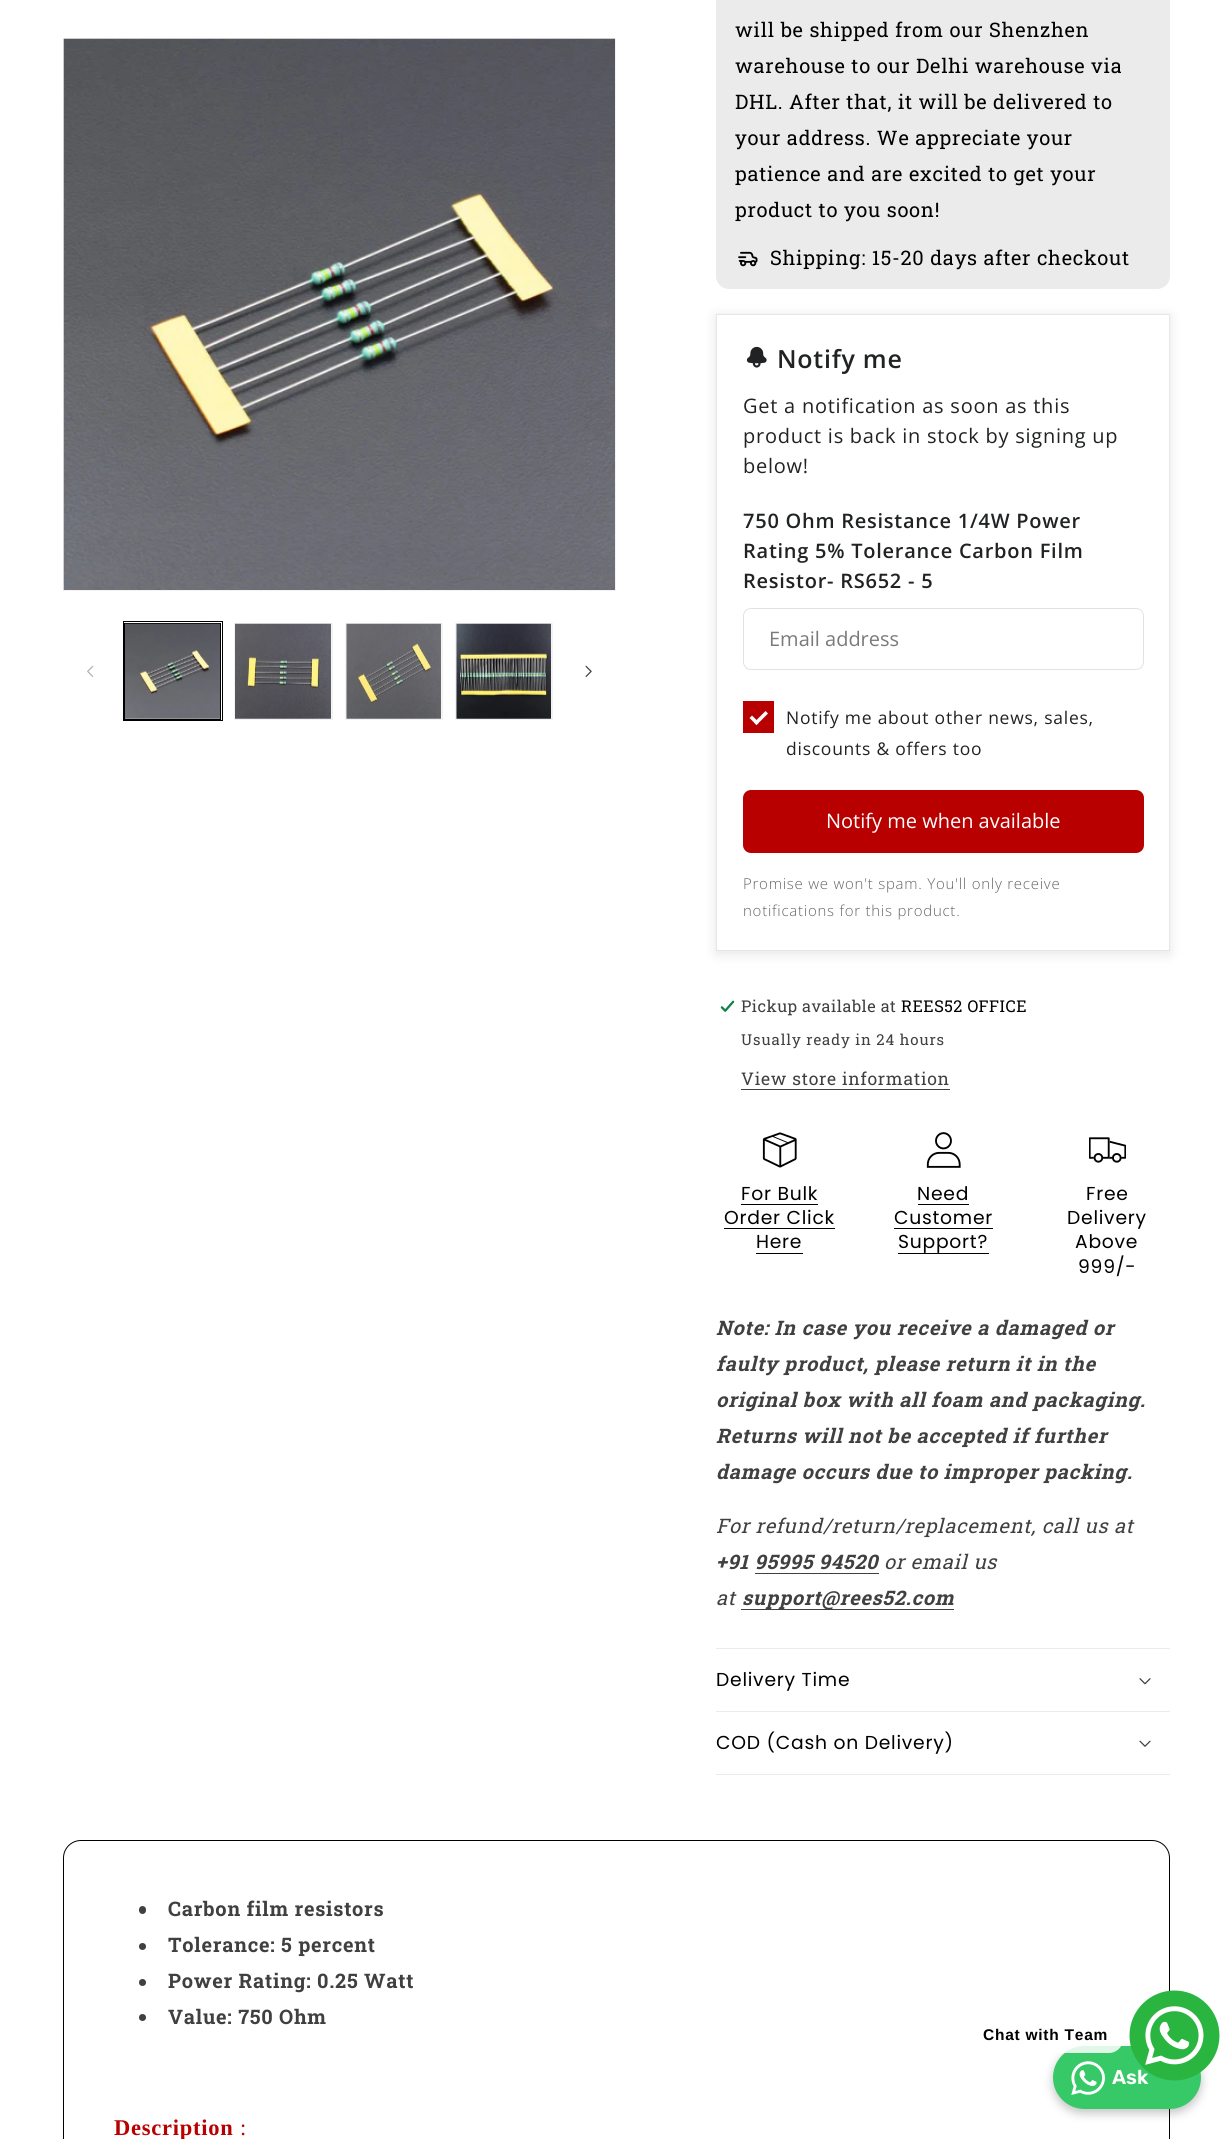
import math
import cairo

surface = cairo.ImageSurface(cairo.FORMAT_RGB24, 1232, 2139)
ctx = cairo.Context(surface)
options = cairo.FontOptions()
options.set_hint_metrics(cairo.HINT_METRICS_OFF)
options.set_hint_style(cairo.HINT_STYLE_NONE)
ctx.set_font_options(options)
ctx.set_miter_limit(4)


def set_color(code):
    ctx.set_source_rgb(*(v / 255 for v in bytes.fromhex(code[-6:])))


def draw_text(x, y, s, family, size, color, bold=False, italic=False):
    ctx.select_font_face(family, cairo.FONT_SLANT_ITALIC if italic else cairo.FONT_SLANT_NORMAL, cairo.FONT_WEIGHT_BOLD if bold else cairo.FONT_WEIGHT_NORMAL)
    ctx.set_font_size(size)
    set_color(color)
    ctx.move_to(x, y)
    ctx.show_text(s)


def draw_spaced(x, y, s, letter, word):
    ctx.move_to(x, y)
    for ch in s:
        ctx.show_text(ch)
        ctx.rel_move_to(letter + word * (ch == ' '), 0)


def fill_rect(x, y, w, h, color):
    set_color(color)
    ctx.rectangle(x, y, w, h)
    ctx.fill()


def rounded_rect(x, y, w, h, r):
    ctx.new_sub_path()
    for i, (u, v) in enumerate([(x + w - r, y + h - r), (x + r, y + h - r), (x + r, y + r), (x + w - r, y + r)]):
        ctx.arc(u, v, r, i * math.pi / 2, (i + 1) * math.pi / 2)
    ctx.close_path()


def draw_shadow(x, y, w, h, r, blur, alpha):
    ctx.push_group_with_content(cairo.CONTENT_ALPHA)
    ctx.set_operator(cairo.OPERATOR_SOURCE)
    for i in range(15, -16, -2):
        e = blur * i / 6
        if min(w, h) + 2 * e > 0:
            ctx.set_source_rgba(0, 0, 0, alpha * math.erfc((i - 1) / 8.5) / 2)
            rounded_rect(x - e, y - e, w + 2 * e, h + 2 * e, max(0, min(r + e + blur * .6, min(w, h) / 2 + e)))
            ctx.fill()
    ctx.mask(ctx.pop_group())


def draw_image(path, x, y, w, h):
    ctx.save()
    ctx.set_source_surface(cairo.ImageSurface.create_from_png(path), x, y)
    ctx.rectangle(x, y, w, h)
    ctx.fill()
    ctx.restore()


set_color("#ffffff")
ctx.paint()
ctx.rectangle(63.5, 38.5, 552, 552)
set_color("#f2f2f2")
ctx.set_line_width(1)
ctx.stroke()
draw_image("assets/img1.png", 63, 38, 552, 552)
draw_image("assets/img2.png", 87, 665, 7, 12)
ctx.rectangle(123.5, 621.5, 99, 99)
set_color("#000000")
ctx.stroke()
ctx.rectangle(124.5, 623.5, 96, 96)
ctx.stroke()
draw_image("assets/img3.png", 125, 623, 95, 96)
ctx.rectangle(234.5, 623.5, 98, 96)
set_color("#f2f2f2")
ctx.stroke()
draw_image("assets/img4.png", 235, 623, 97, 96)
ctx.rectangle(345.5, 623.5, 97, 96)
ctx.stroke()
draw_image("assets/img5.png", 346, 623, 96, 96)
ctx.rectangle(455.5, 623.5, 97, 96)
ctx.stroke()
draw_image("assets/img6.png", 456, 623, 96, 96)
draw_image("assets/img7.png", 585, 665, 7, 12)
set_color("#ebebeb")
rounded_rect(716, -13, 454, 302, 13)
ctx.fill()
ctx.select_font_face("Roboto Slab")
ctx.set_font_size(20)
set_color("#000000")
draw_spaced(735, 37, "will be shipped from our Shenzhen", 0.75, 0)
draw_spaced(735, 73, "warehouse to our Delhi warehouse via", 0.75, 0)
draw_spaced(735, 109, "DHL. After that, it will be delivered to", 0.75, 0)
draw_spaced(735, 145, "your address. We appreciate your", 0.75, 0)
draw_spaced(735, 181, "patience and are excited to get your", 0.75, 0)
draw_spaced(735, 217, "product to you soon!", 0.75, 0)
draw_image("assets/img8.png", 738, 251, 20, 16)
draw_spaced(770, 265, "Shipping: 15-20 days after checkout", 0.75, 0)
set_color("#000000")
draw_shadow(716, 316, 454, 638, 0, 6, 0.1)
set_color("#ffffff")
ctx.rectangle(716.5, 314.5, 453, 636)
ctx.fill_preserve()
set_color("#e6e6e6")
ctx.stroke()
draw_image("assets/img9.png", 746, 346, 21, 22)
ctx.select_font_face("Open Sans SemiBold")
ctx.set_font_size(25)
set_color("#202223")
draw_spaced(777, 368, "Notify me", 0.75, 0)
ctx.select_font_face("Open Sans")
ctx.set_font_size(20)
draw_spaced(743, 413, "Get a notification as soon as this", 0.75, 0)
draw_spaced(743, 443, "product is back in stock by signing up", 0.75, 0)
draw_spaced(743, 473, "below!", 0.75, 0)
ctx.select_font_face("Open Sans SemiBold")
draw_spaced(743, 528, "750 Ohm Resistance 1/4W Power", 0.75, 0)
draw_spaced(743, 558, "Rating 5% Tolerance Carbon Film", 0.75, 0)
draw_spaced(743, 588, "Resistor- RS652 - 5", 0.75, 0)
rounded_rect(743.5, 608.5, 400, 61, 7.5)
set_color("#dfe3e8")
ctx.stroke()
draw_text(769, 646, "Email address", "Open Sans", 20, "#797a7b")
fill_rect(743, 701, 31, 32, "#b80000")
set_color("#ffffff")
ctx.new_path()
ctx.move_to(765.5, 711)
ctx.line_to(768, 713.5)
ctx.line_to(756.5, 725)
ctx.line_to(754, 722.5)
ctx.close_path()
ctx.fill()
ctx.new_path()
ctx.move_to(752, 715.5)
ctx.line_to(759, 722.5)
ctx.line_to(756.5, 725)
ctx.line_to(749.5, 718)
ctx.close_path()
ctx.fill()
ctx.set_font_size(17.5)
set_color("#202223")
draw_spaced(786, 724, "Notify me about other news, sales,", 0.75, 0)
draw_spaced(786, 755, "discounts & offers too", 0.75, 0)
set_color("#b80000")
rounded_rect(743, 790, 401, 63, 8)
ctx.fill()
draw_text(826, 828, "Notify me when available", "Open Sans", 20, "#ffffff")
ctx.select_font_face("Open Sans Light")
ctx.set_font_size(15)
set_color("#636465")
draw_spaced(743, 889, "Promise we won't spam. You'll only receive", 0.75, 0)
draw_spaced(743, 916, "notifications for this product.", 0.75, 0)
draw_image("assets/img10.png", 720, 1000, 15, 13)
ctx.select_font_face("Roboto Slab")
ctx.set_font_size(16.25)
set_color("#404040")
draw_spaced(741, 1012, "Pickup available at", 0.5, 0)
set_color("#000000")
draw_spaced(901, 1012, "REES52 OFFICE", 0.5, 0)
ctx.set_font_size(15)
set_color("#404040")
draw_spaced(741, 1045, "Usually ready in 24 hours", 0.9, 0)
ctx.set_font_size(17.5)
draw_spaced(741, 1085, "View store information", 0.75, 0)
fill_rect(741, 1089, 209, 1, "#404040")
draw_image("assets/img11.png", 762, 1132, 35, 36)
ctx.select_font_face("Poppins")
ctx.set_font_size(18.75)
set_color("#000000")
draw_spaced(741, 1200, "For Bulk", 0.75, 0)
fill_rect(741, 1204, 77, 1, "#000000")
draw_spaced(724, 1224, "Order Click", 0.75, 0)
fill_rect(724, 1228, 111, 1, "#000000")
draw_spaced(756, 1248, "Here", 0.75, 0)
fill_rect(756, 1253, 47, 1, "#000000")
draw_image("assets/img12.png", 926, 1132, 35, 36)
draw_spaced(917, 1200, "Need", 0.75, 0)
fill_rect(918, 1204, 51, 1, "#000000")
draw_spaced(894, 1224, "Customer", 0.75, 0)
fill_rect(894, 1228, 99, 1, "#000000")
draw_spaced(898, 1248, "Support?", 0.75, 0)
fill_rect(898, 1253, 91, 1, "#000000")
draw_image("assets/img13.png", 1089, 1137, 37, 26)
draw_spaced(1086, 1200, "Free", 0.75, 0)
draw_spaced(1067, 1224, "Delivery", 0.75, 0)
draw_spaced(1075, 1248, "Above", 0.75, 0)
draw_spaced(1078, 1273, "999/-", 0.75, 0)
ctx.select_font_face("Roboto Slab", cairo.FONT_SLANT_ITALIC, cairo.FONT_WEIGHT_BOLD)
ctx.set_font_size(20)
set_color("#404040")
draw_spaced(716, 1335, "Note: In case you receive a damaged or", 0.75, 0)
draw_spaced(716, 1371, "faulty product, please return it in the", 0.75, 0)
draw_spaced(716, 1407, "original box with all foam and packaging.", 0.75, 0)
draw_spaced(716, 1443, "Returns will not be accepted if further", 0.75, 0)
draw_spaced(716, 1479, "damage occurs due to improper packing.", 0.75, 0)
ctx.select_font_face("Roboto Slab", cairo.FONT_SLANT_ITALIC)
draw_spaced(716, 1533, "For refund/return/replacement, call us at", 0.75, 0)
ctx.select_font_face("Roboto Slab", cairo.FONT_SLANT_ITALIC, cairo.FONT_WEIGHT_BOLD)
draw_spaced(716, 1569, "+91 95995 94520", 0.75, 0)
ctx.select_font_face("Roboto Slab", cairo.FONT_SLANT_ITALIC)
draw_spaced(884, 1569, "or email us", 0.75, 0)
fill_rect(755, 1573, 124, 1, "#404040")
draw_spaced(716, 1605, "at", 0.75, 0)
fill_rect(741, 1609, 213, 1, "#404040")
ctx.select_font_face("Roboto Slab", cairo.FONT_SLANT_ITALIC, cairo.FONT_WEIGHT_BOLD)
draw_spaced(742, 1605, "support@rees52.com", 0.75, 0)
fill_rect(716, 1648, 454, 1, "#ebebeb")
fill_rect(716, 1711, 454, 1, "#ebebeb")
ctx.select_font_face("Poppins")
ctx.set_font_size(18.75)
set_color("#000000")
draw_spaced(716, 1686, "Delivery Time", 0.75, 0)
draw_image("assets/img14.png", 1139, 1678, 12, 7)
fill_rect(716, 1774, 454, 1, "#ebebeb")
set_color("#000000")
draw_spaced(716, 1749, "COD (Cash on Delivery)", 0.75, 0)
draw_image("assets/img15.png", 1139, 1740, 12, 7)
rounded_rect(63.5, 1840.5, 1106, 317, 17.5)
ctx.stroke()
set_color("#404040")
rounded_rect(139, 1906, 7, 8, 3.5)
ctx.fill()
ctx.select_font_face("Roboto Slab", cairo.FONT_SLANT_NORMAL, cairo.FONT_WEIGHT_BOLD)
ctx.set_font_size(20)
draw_spaced(168, 1916, "Carbon film resistors", 0.75, 0)
ctx.new_path()
ctx.arc(142.5, 1946.5, 3.5, 0, 2 * math.pi)
ctx.fill()
draw_spaced(168, 1952, "Tolerance: 5 percent", 0.75, 0)
ctx.new_path()
ctx.arc(142.5, 1982.5, 3.5, 0, 2 * math.pi)
ctx.fill()
draw_spaced(168, 1988, "Power Rating: 0.25 Watt", 0.75, 0)
ctx.new_path()
ctx.arc(142.5, 2017.5, 3.5, 0, 2 * math.pi)
ctx.fill()
draw_spaced(168, 2024, "Value: 750 Ohm", 0.75, 0)
ctx.select_font_face("Liberation Serif", cairo.FONT_SLANT_NORMAL, cairo.FONT_WEIGHT_BOLD)
ctx.set_font_size(22.5)
set_color("#b80000")
draw_spaced(114, 2135, "Description", 0.75, 0)
ctx.select_font_face("Liberation Serif")
draw_spaced(240, 2135, ":", 0.75, 0)
set_color("#000000")
draw_shadow(1053, 2050, 148, 63, 31.5, 5, 0.24)
set_color("#37c968")
rounded_rect(1053, 2046, 148, 63, 31.5)
ctx.fill()
ctx.set_source_rgba(1, 1, 1, 0.85)
rounded_rect(971, 2019, 152, 34, 14)
ctx.fill()
ctx.select_font_face("Liberation Sans", cairo.FONT_SLANT_NORMAL, cairo.FONT_WEIGHT_BOLD)
ctx.set_font_size(15.5)
set_color("#000000")
draw_spaced(983, 2040, "Chat with Team", 0.75, 0)
draw_text(1112, 2084, "Ask", "Rubik SemiBold", 20, "#ffffff")
draw_image("assets/img16.png", 1129, 1990, 91, 91)
draw_image("assets/img17.png", 1071, 2061, 34, 34)
surface.write_to_png("output.png")
